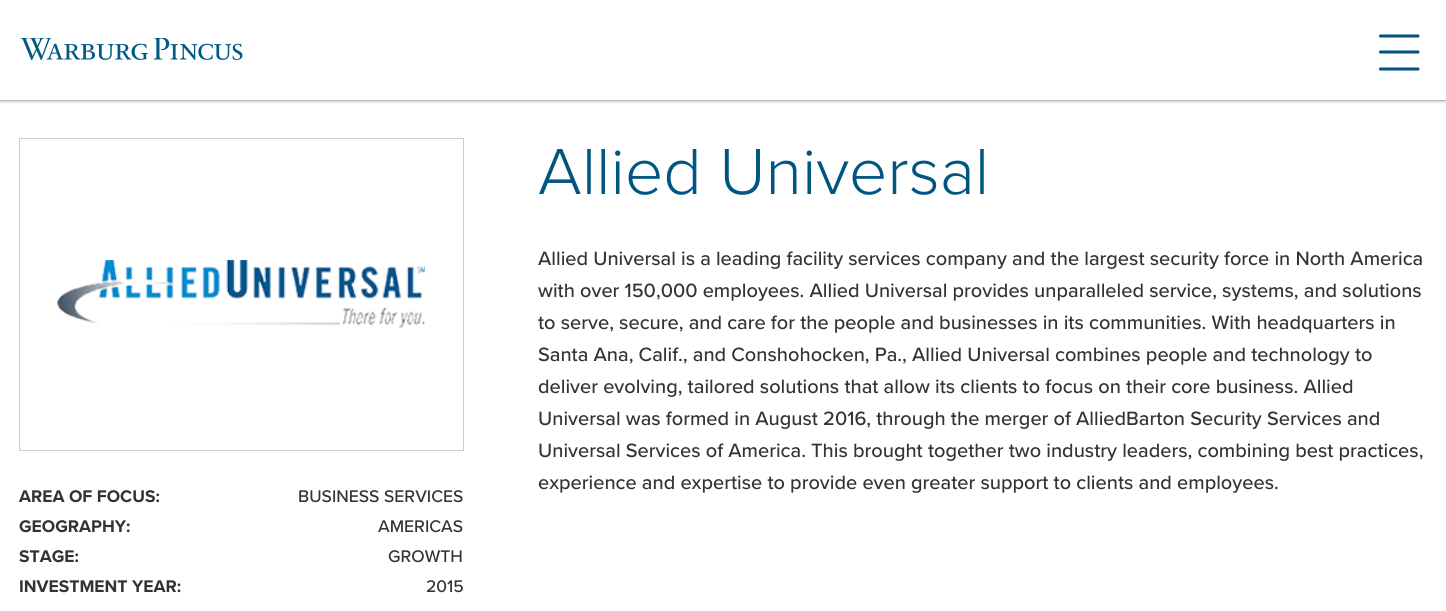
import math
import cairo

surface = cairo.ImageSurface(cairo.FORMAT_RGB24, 1446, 611)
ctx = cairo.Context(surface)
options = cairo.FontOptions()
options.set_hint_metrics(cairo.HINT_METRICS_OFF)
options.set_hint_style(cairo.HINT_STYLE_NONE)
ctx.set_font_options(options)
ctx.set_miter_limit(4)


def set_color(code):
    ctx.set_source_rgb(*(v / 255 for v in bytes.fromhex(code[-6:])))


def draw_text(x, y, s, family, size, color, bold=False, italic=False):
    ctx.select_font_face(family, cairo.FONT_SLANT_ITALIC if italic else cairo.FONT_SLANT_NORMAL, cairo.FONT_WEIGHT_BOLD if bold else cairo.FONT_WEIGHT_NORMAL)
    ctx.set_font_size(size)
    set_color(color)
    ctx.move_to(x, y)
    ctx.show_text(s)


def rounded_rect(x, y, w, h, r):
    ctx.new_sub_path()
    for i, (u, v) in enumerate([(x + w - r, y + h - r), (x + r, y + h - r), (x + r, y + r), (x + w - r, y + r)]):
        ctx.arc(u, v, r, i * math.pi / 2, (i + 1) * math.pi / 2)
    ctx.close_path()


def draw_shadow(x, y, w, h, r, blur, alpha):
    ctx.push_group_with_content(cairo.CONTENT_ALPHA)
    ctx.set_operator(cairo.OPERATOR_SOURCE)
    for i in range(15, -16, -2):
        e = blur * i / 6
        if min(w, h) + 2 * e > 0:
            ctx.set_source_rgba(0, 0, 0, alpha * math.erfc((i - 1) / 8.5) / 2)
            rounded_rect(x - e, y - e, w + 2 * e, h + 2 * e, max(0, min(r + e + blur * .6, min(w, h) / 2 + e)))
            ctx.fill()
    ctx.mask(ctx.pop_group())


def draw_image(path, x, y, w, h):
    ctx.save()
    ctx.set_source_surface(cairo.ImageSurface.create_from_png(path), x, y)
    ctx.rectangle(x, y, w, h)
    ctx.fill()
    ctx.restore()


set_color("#ffffff")
ctx.paint()
ctx.save()
ctx.rectangle(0, 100, 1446, 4)
ctx.clip()
set_color("#000000")
draw_shadow(0, 0, 1446, 100, 0, 2, 0.65)
ctx.restore()
draw_image("assets/img1.png", 20, 38, 223, 22)
ctx.new_path()
ctx.move_to(1380.5, 36)
ctx.line_to(1418, 36)
ctx.move_to(1380.5, 52)
ctx.line_to(1418, 52)
ctx.move_to(1380.5, 69)
ctx.line_to(1418, 69)
set_color("#005581")
ctx.set_line_width(3.1)
ctx.set_line_cap(cairo.LINE_CAP_ROUND)
ctx.stroke()
draw_text(538, 194, "Allied Universal", "Proxima Nova Light", 67.5, "#005581")
draw_text(538, 265, "Allied Universal is a leading facility services company and the largest security force in North America", "Proxima Nova Medium", 20, "#333333")
draw_text(538, 297, "with over 150,000 employees. Allied Universal provides unparalleled service, systems, and solutions", "Proxima Nova Medium", 20, "#333333")
draw_text(538, 329, "to serve, secure, and care for the people and businesses in its communities. With headquarters in", "Proxima Nova Medium", 20, "#333333")
draw_text(538, 361, "Santa Ana, Calif., and Conshohocken, Pa., Allied Universal combines people and technology to", "Proxima Nova Medium", 20, "#333333")
draw_text(538, 393, "deliver evolving, tailored solutions that allow its clients to focus on their core business. Allied", "Proxima Nova Medium", 20, "#333333")
draw_text(538, 425, "Universal was formed in August 2016, through the merger of AlliedBarton Security Services and", "Proxima Nova Medium", 20, "#333333")
draw_text(538, 457, "Universal Services of America. This brought together two industry leaders, combining best practices,", "Proxima Nova Medium", 20, "#333333")
draw_text(538, 489, "experience and expertise to provide even greater support to clients and employees.", "Proxima Nova Medium", 20, "#333333")
ctx.rectangle(19.5, 138.5, 444, 312)
set_color("#cccccc")
ctx.set_line_width(1)
ctx.set_line_cap(cairo.LINE_CAP_BUTT)
ctx.stroke()
draw_image("assets/img2.png", 57, 260, 368, 68)
draw_text(19, 502, "AREA OF FOCUS:", "Proxima Nova", 17.5, "#333333", bold=True)
draw_text(298, 502, "BUSINESS SERVICES", "Proxima Nova Medium", 17.5, "#333333")
draw_text(19, 532, "GEOGRAPHY:", "Proxima Nova", 17.5, "#333333", bold=True)
draw_text(378, 532, "AMERICAS", "Proxima Nova Medium", 17.5, "#333333")
draw_text(19, 562, "STAGE:", "Proxima Nova", 17.5, "#333333", bold=True)
draw_text(388, 562, "GROWTH", "Proxima Nova Medium", 17.5, "#333333")
draw_text(19, 592, "INVESTMENT YEAR:", "Proxima Nova", 17.5, "#333333", bold=True)
draw_text(426, 592, "2015", "Proxima Nova Medium", 17.5, "#333333")
surface.write_to_png("output.png")
